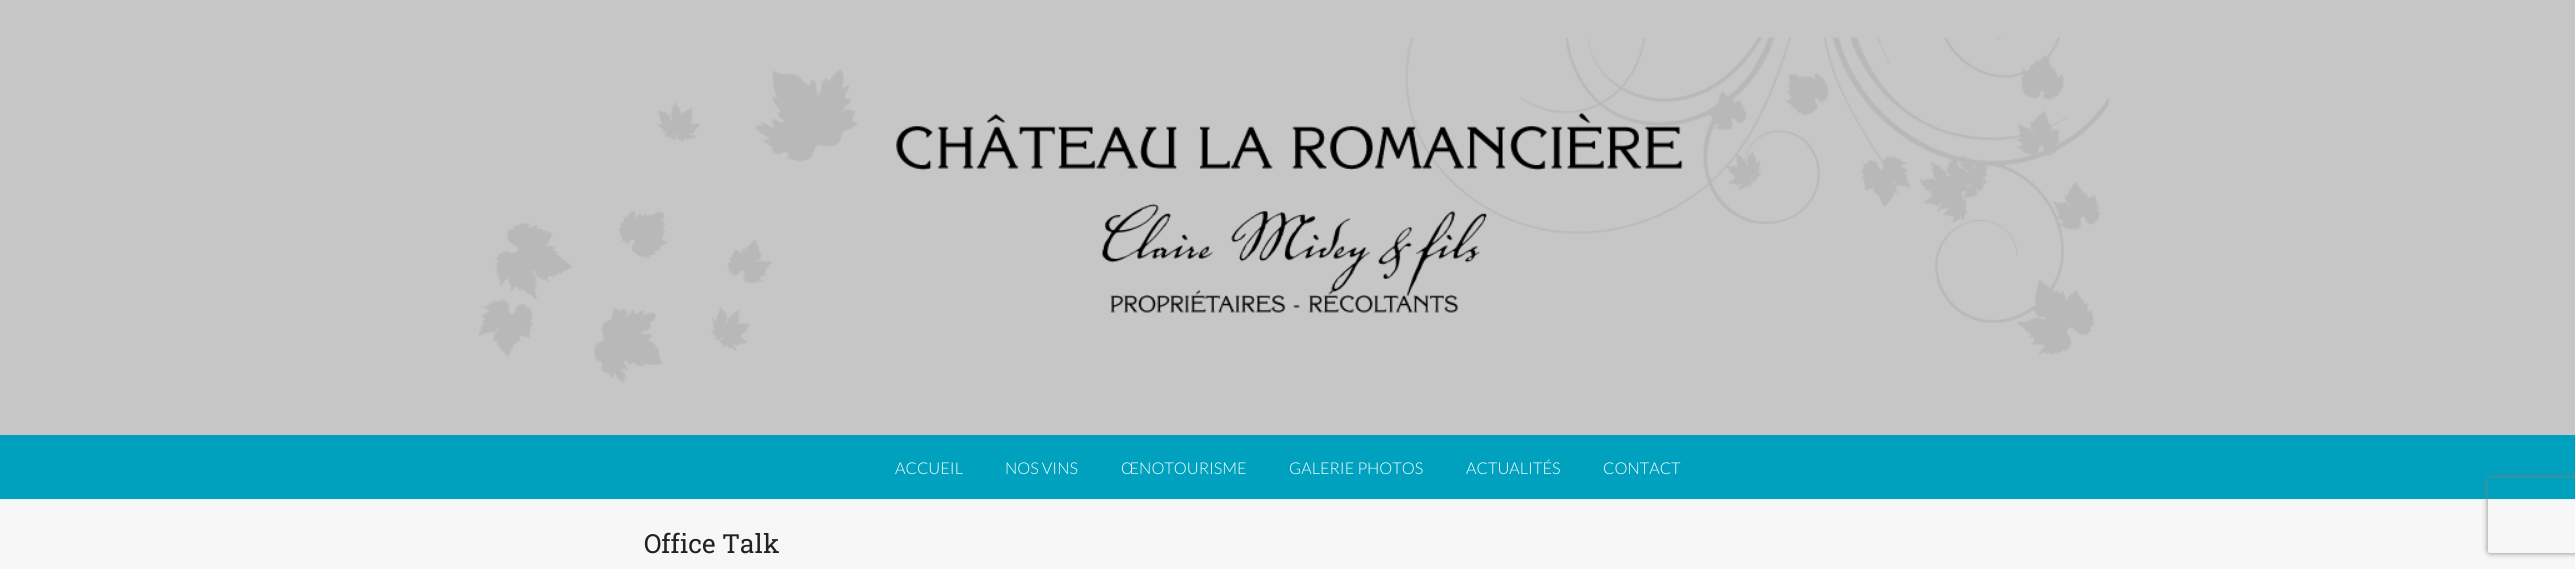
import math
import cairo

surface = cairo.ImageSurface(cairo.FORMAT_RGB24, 2575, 569)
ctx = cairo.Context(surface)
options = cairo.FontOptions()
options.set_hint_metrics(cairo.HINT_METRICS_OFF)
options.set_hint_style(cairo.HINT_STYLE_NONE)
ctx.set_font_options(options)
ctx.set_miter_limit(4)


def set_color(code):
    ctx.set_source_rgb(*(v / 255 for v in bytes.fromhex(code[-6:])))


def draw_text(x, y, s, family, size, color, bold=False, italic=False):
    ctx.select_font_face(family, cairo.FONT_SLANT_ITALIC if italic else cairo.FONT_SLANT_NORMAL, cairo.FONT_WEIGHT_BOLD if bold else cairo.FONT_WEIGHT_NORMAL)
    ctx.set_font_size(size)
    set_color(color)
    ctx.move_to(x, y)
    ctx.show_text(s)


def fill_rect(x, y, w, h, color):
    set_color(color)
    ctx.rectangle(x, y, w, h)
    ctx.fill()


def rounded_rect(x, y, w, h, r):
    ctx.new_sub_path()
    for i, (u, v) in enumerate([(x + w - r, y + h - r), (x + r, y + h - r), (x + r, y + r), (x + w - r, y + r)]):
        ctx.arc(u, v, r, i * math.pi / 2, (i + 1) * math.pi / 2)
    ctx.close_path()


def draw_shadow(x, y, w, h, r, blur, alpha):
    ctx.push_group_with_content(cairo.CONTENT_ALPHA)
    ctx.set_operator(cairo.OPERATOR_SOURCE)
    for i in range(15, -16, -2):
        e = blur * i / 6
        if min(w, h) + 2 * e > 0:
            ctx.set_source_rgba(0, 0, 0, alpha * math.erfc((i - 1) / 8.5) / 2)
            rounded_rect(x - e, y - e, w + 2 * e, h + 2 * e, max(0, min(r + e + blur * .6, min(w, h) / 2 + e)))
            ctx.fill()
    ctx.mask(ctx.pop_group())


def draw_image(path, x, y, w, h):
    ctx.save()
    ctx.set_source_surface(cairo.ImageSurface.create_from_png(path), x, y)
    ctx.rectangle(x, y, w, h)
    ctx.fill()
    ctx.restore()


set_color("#c6c6c6")
ctx.paint()
draw_image("assets/img1.png", 479, 37, 1630, 346)
fill_rect(0, 435, 2575, 64, "#00a1be")
draw_text(895, 474, "ACCUEIL", "Lato Light", 16.25, "#ffffff")
draw_text(1005, 474, "NOS VINS", "Lato Light", 16.25, "#ffffff")
draw_text(1121, 474, "ŒNOTOURISME", "Lato Light", 16.25, "#ffffff")
draw_text(1289, 474, "GALERIE PHOTOS", "Lato Light", 16.25, "#ffffff")
draw_text(1466, 474, "ACTUALITÉS", "Lato Light", 16.25, "#ffffff")
draw_text(1603, 474, "CONTACT", "Lato Light", 16.25, "#ffffff")
fill_rect(0, 500, 2575, 69, "#f7f7f7")
fill_rect(0, 499, 2575, 1, "#eeeeee")
draw_text(644, 553, "Office Talk", "Roboto Slab", 26.25, "#222222")
ctx.save()
ctx.set_fill_rule(cairo.FILL_RULE_EVEN_ODD)
ctx.new_path()
ctx.move_to(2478, 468)
ctx.line_to(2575, 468)
ctx.line_to(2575, 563)
ctx.line_to(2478, 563)
ctx.close_path()
ctx.move_to(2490.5, 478)
ctx.line_to(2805.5, 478)
ctx.curve_to(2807, 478, 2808, 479, 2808, 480.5)
ctx.line_to(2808, 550.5)
ctx.curve_to(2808, 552, 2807, 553, 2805.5, 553)
ctx.line_to(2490.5, 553)
ctx.curve_to(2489, 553, 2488, 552, 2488, 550.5)
ctx.line_to(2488, 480.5)
ctx.curve_to(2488, 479, 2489, 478, 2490.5, 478)
ctx.close_path()
ctx.clip()
set_color("#808080")
draw_shadow(2488, 478, 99, 75, 2.5, 3, 1)
ctx.restore()
surface.write_to_png("output.png")
